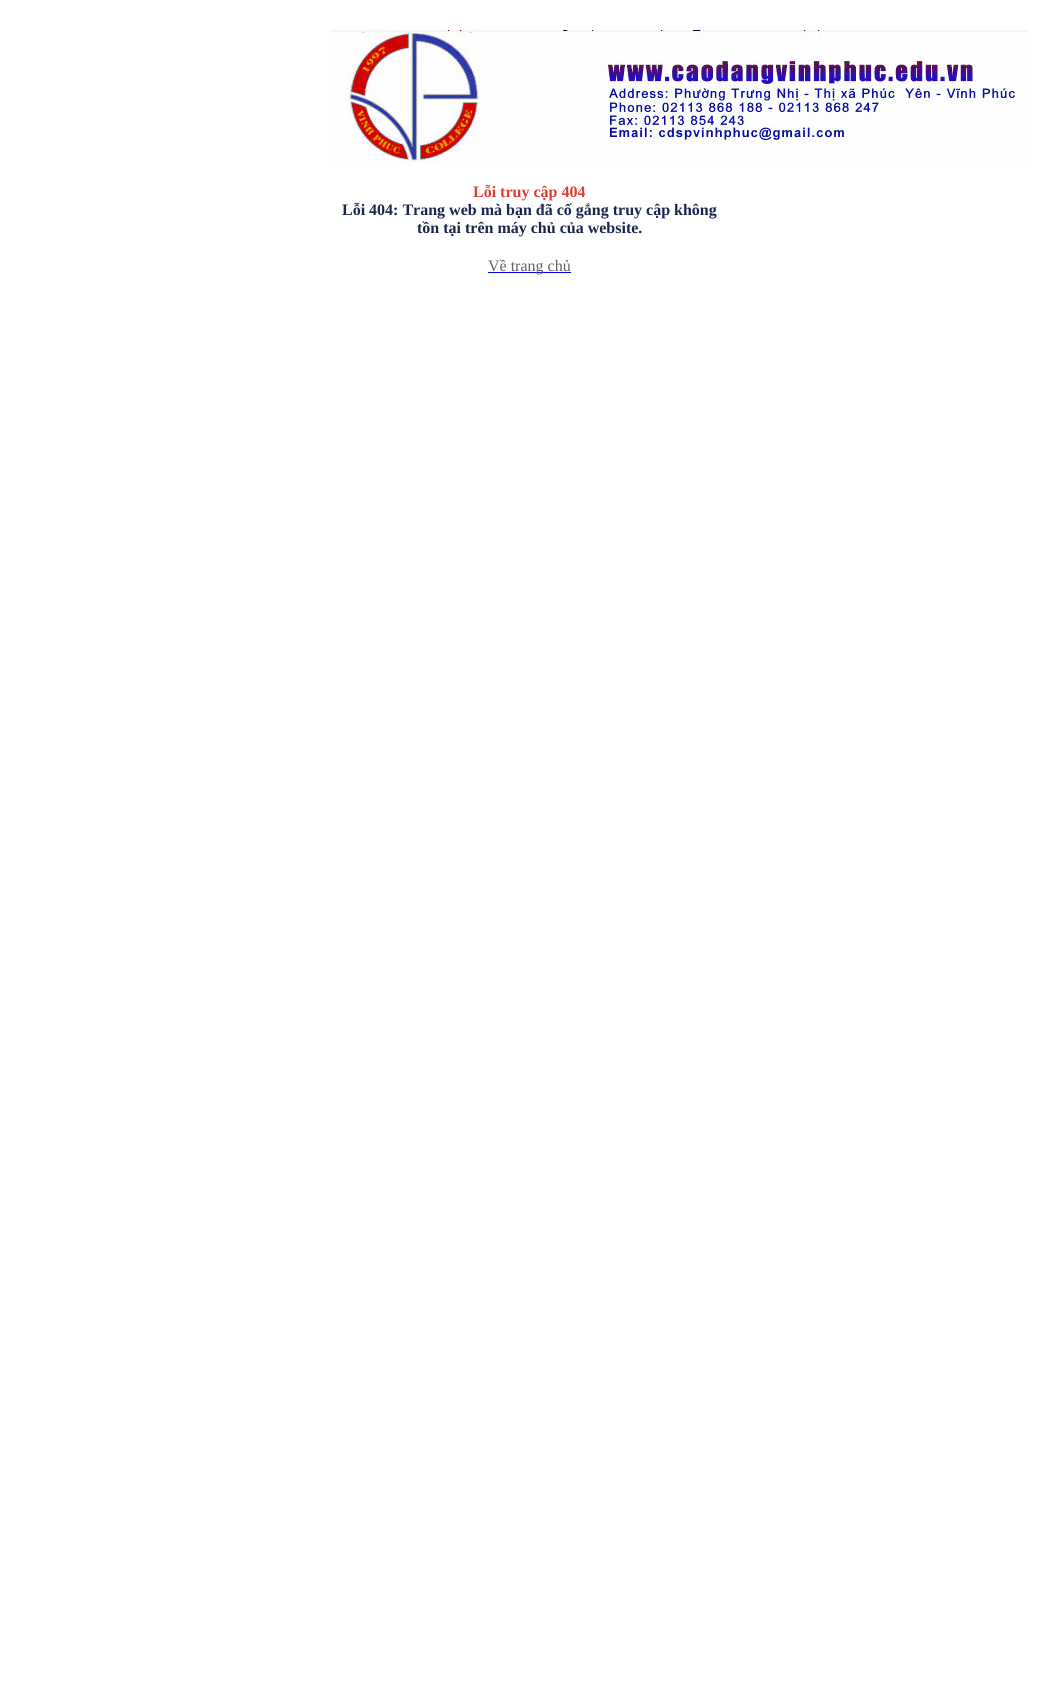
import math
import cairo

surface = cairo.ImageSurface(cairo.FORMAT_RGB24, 1059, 1682)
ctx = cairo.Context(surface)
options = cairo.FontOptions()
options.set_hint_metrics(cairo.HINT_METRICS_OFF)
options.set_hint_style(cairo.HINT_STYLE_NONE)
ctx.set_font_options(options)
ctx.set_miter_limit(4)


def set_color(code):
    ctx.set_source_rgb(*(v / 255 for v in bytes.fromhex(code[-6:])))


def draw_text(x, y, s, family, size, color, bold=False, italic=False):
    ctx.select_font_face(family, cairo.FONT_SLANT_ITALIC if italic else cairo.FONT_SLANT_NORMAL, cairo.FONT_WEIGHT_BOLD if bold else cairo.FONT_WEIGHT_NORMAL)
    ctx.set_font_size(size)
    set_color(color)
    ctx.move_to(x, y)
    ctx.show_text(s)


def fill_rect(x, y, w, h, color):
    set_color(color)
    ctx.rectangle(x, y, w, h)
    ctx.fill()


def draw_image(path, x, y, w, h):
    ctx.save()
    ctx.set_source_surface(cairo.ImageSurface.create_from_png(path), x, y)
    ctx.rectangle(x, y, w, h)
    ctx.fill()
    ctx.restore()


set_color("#ffffff")
ctx.paint()
draw_image("assets/img1.png", 330, 30, 698, 133)
draw_text(473, 197, "Lỗi truy cập 404", "Liberation Serif", 16, "#dd3e31", bold=True)
draw_text(342, 215, "Lỗi 404: Trang web mà bạn đã cố gắng truy cập không", "Liberation Serif", 16, "#1a264e", bold=True)
draw_text(417, 233, "tồn tại trên máy chủ của website.", "Liberation Serif", 16, "#1a264e", bold=True)
fill_rect(488, 272, 83, 1, "#0000ee")
draw_text(488, 271, "Về trang chủ", "Liberation Serif", 16, "#616161")
surface.write_to_png("output.png")
